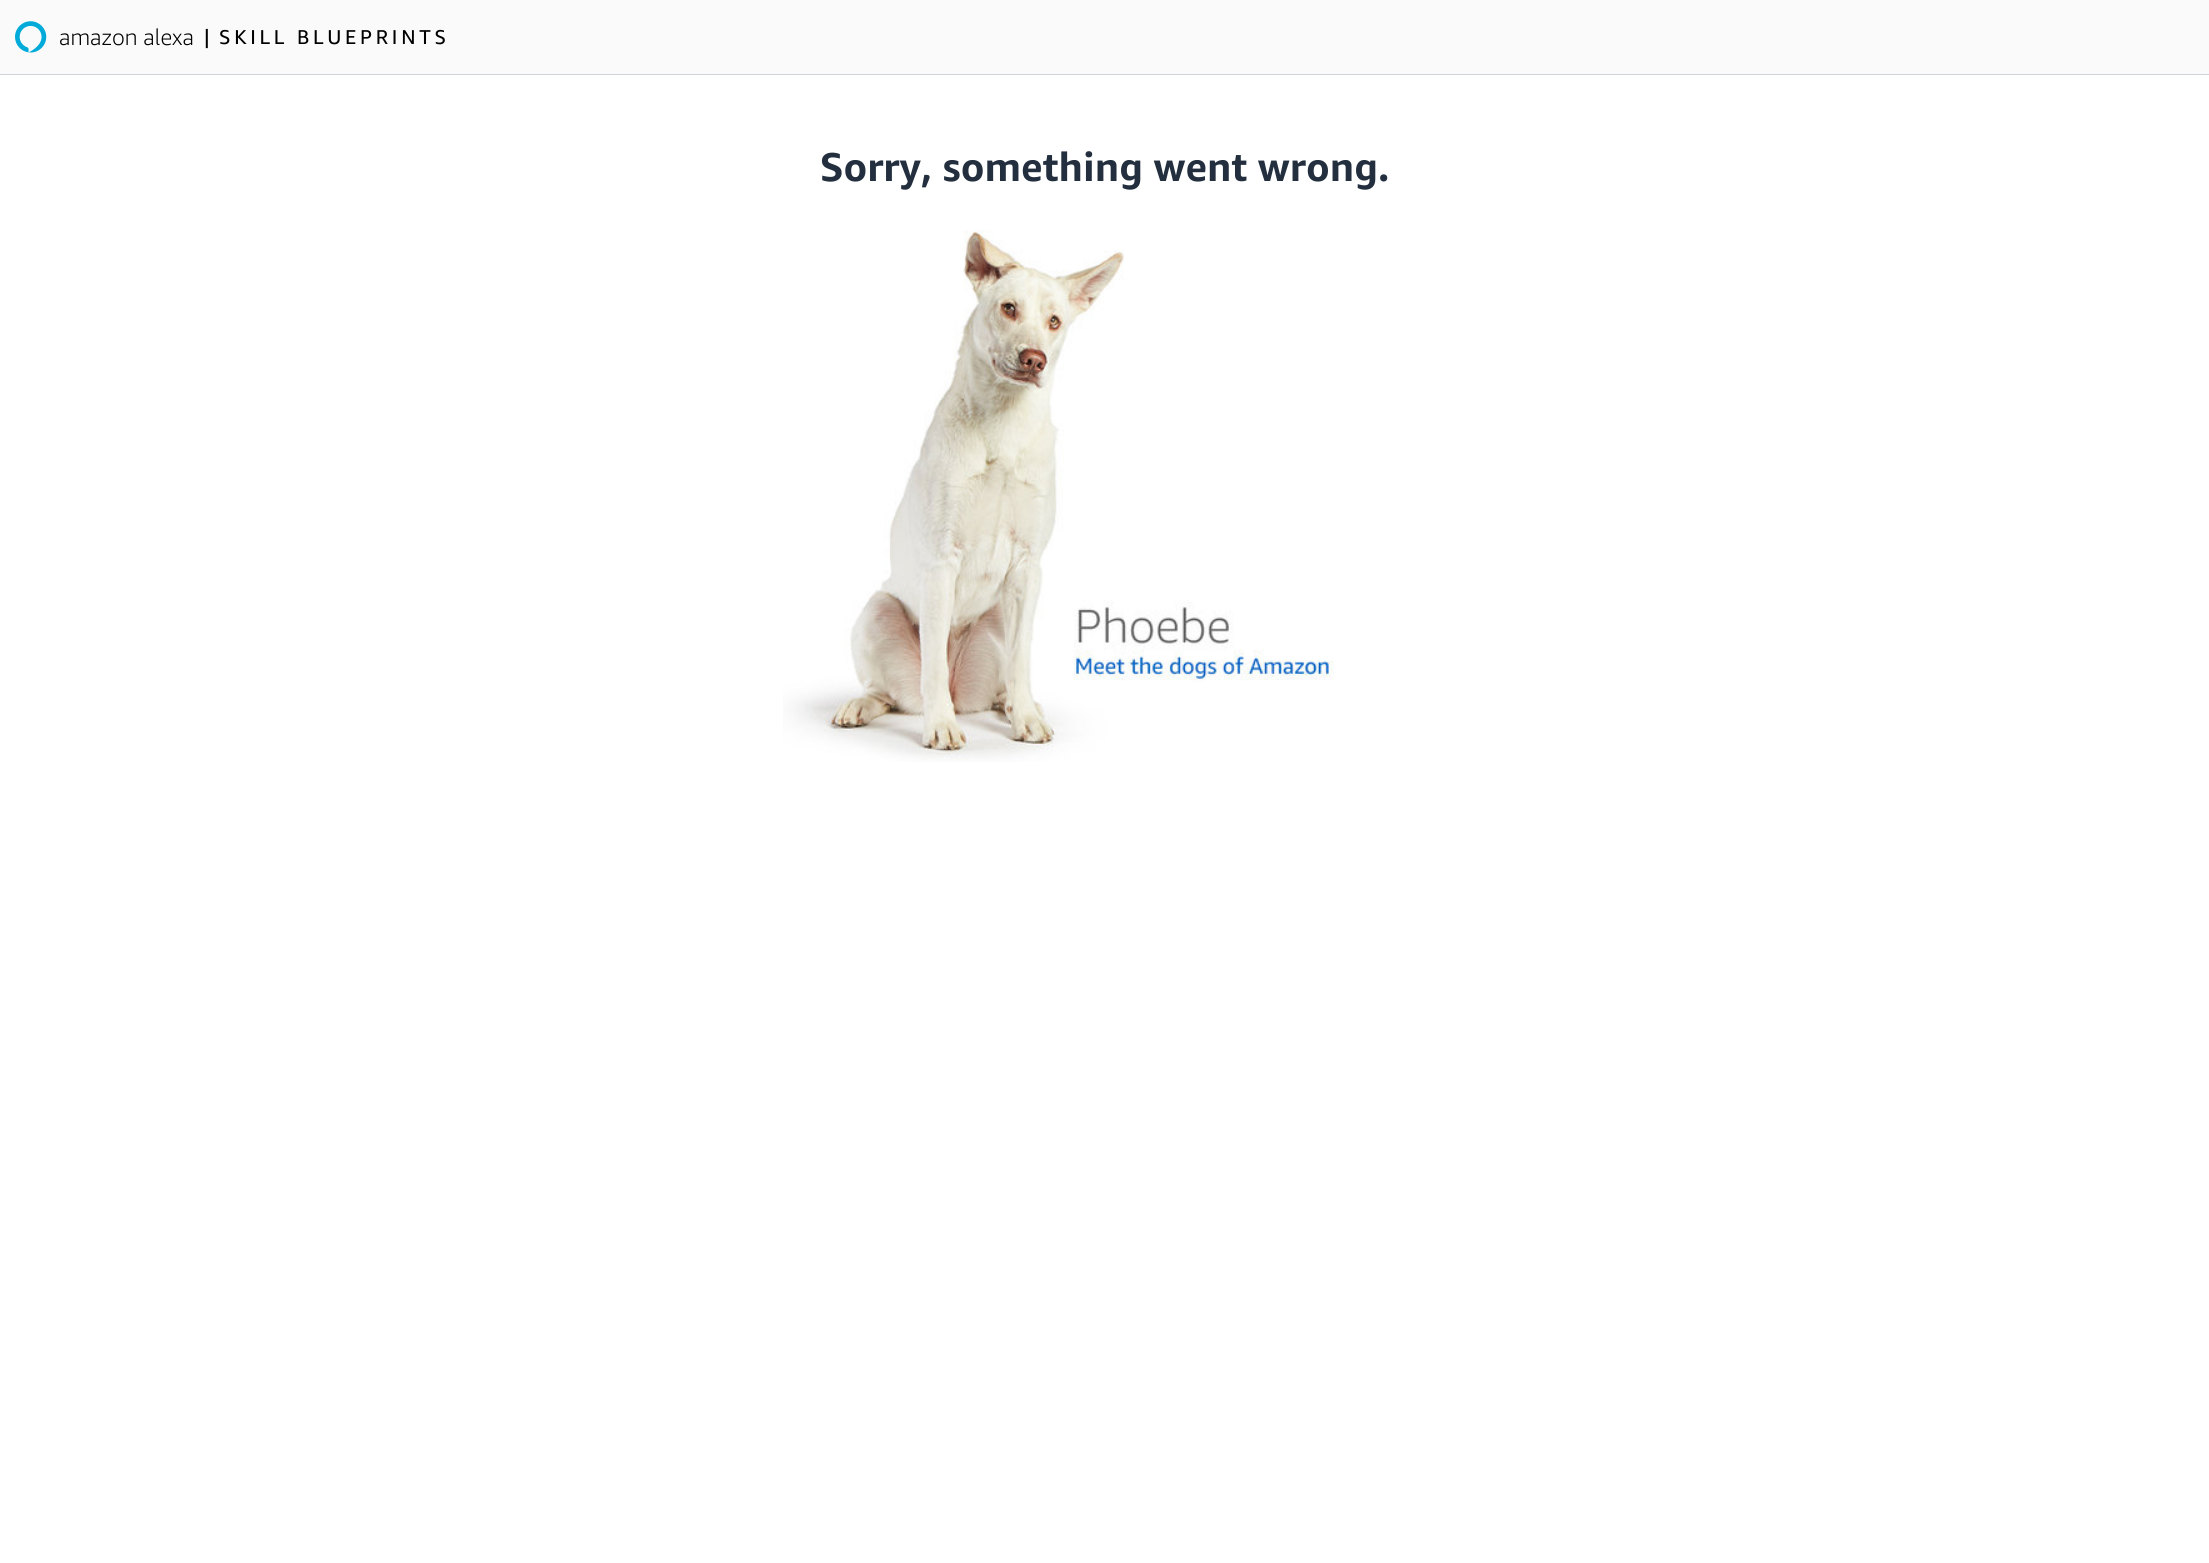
import math
import cairo

surface = cairo.ImageSurface(cairo.FORMAT_RGB24, 2209, 1563)
ctx = cairo.Context(surface)
options = cairo.FontOptions()
options.set_hint_metrics(cairo.HINT_METRICS_OFF)
options.set_hint_style(cairo.HINT_STYLE_NONE)
ctx.set_font_options(options)
ctx.set_miter_limit(4)


def set_color(code):
    ctx.set_source_rgb(*(v / 255 for v in bytes.fromhex(code[-6:])))


def draw_text(x, y, s, family, size, color, bold=False, italic=False):
    ctx.select_font_face(family, cairo.FONT_SLANT_ITALIC if italic else cairo.FONT_SLANT_NORMAL, cairo.FONT_WEIGHT_BOLD if bold else cairo.FONT_WEIGHT_NORMAL)
    ctx.set_font_size(size)
    set_color(color)
    ctx.move_to(x, y)
    ctx.show_text(s)


def draw_spaced(x, y, s, letter, word):
    ctx.move_to(x, y)
    for ch in s:
        ctx.show_text(ch)
        ctx.rel_move_to(letter + word * (ch == ' '), 0)


def fill_rect(x, y, w, h, color):
    set_color(color)
    ctx.rectangle(x, y, w, h)
    ctx.fill()


def draw_image(path, x, y, w, h):
    ctx.save()
    ctx.set_source_surface(cairo.ImageSurface.create_from_png(path), x, y)
    ctx.rectangle(x, y, w, h)
    ctx.fill()
    ctx.restore()


set_color("#ffffff")
ctx.paint()
fill_rect(0, 0, 2209, 74, "#fafafa")
fill_rect(0, 74, 2209, 1, "#ced4da")
draw_image("assets/img1.png", 15, 21, 32, 32)
draw_text(59, 45, "amazon alexa", "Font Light", 22.5, "#000000")
draw_text(204, 44, "|", "Font", 20, "#000000")
draw_spaced(219, 44, "SKILL BLUEPRINTS", 3.75, 0)
draw_text(820, 181, "Sorry, something went wrong.", "Font", 40, "#232f3e", bold=True)
draw_image("assets/img2.png", 783, 230, 551, 532)
surface.write_to_png("output.png")
